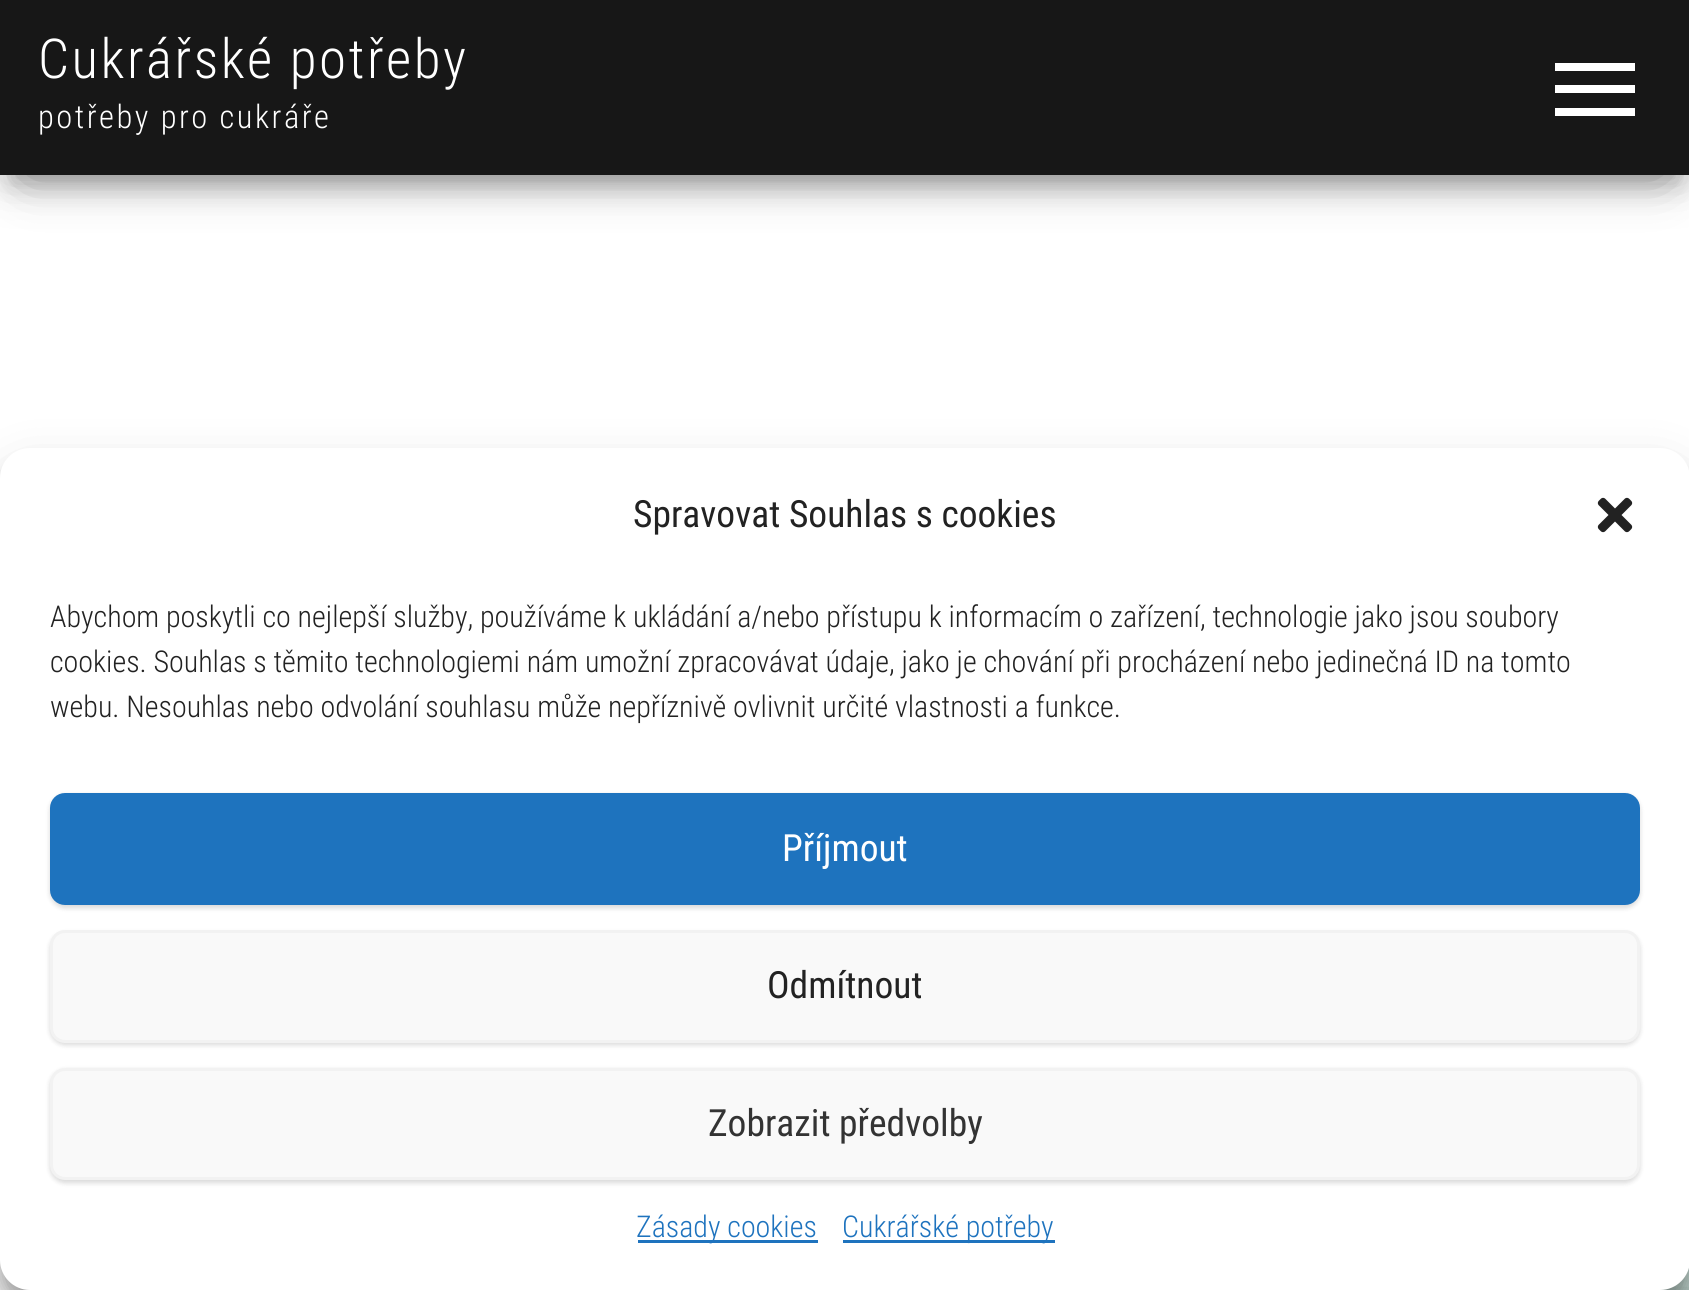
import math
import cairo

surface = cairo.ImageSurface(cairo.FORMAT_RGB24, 1689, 1290)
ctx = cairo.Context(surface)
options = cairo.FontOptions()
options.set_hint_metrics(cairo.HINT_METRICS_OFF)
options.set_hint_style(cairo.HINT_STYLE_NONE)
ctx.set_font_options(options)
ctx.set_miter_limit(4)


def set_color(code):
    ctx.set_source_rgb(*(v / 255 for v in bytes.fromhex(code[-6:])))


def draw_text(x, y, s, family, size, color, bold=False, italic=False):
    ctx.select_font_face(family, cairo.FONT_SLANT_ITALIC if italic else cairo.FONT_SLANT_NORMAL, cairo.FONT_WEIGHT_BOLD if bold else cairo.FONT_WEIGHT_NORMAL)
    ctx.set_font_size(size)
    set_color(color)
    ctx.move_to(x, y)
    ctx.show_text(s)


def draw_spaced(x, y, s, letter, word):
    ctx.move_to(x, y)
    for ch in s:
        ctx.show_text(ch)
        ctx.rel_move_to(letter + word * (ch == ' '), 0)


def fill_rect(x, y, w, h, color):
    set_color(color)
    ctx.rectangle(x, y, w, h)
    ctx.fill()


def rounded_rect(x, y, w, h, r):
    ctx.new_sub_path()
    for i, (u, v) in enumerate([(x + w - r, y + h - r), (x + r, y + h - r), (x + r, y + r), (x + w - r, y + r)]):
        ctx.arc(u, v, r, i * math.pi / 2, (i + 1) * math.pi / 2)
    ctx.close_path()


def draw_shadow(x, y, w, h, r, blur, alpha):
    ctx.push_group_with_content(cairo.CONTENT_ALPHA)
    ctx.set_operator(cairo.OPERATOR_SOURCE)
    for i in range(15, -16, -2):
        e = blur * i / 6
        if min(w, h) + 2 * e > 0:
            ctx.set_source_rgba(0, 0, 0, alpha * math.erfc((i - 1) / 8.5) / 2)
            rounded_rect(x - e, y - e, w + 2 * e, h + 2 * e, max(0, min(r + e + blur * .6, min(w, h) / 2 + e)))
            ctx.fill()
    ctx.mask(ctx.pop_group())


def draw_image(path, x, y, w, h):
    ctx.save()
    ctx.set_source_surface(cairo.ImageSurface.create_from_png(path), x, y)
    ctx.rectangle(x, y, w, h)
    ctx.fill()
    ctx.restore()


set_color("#ffffff")
ctx.paint()
set_color("#000000")
draw_shadow(13, 33, 1665, 150, 0, 12.5, 0.2)
draw_shadow(0, 8, 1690, 175, 0, 25, 0.12)
draw_shadow(30, 55, 1630, 115, 0, 25, 0.42)
fill_rect(0, 0, 1689, 175, "#171717")
ctx.select_font_face("Roboto Condensed Light")
ctx.set_font_size(55)
set_color("#ffffff")
draw_spaced(38, 78, "Cukrářské potřeby", 2.5, 0)
ctx.set_font_size(32.5)
draw_spaced(38, 128, "potřeby pro cukráře", 2.5, 0)
fill_rect(1555, 63, 80, 8, "#ffffff")
fill_rect(1555, 85, 80, 8, "#ffffff")
fill_rect(1555, 108, 80, 8, "#ffffff")
draw_image("assets/img2.png", 0, 1260, 1689, 30)
set_color("#000000")
draw_shadow(0, 463, 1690, 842, 30, 7.5, 0.23)
draw_shadow(0, 473, 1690, 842, 30, 25, 0.19)
set_color("#ffffff")
rounded_rect(0, 448, 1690, 842, 30)
ctx.fill()
draw_text(633, 527, "Spravovat Souhlas s cookies", "Roboto Condensed", 37.5, "#222222")
draw_image("assets/img1.png", 1597, 497, 36, 36)
draw_text(50, 627, "Abychom poskytli co nejlepší služby, používáme k ukládání a/nebo přístupu k informacím o zařízení, technologie jako jsou soubory", "Roboto Condensed Light", 30, "#222222")
draw_text(50, 672, "cookies. Souhlas s těmito technologiemi nám umožní zpracovávat údaje, jako je chování při procházení nebo jedinečná ID na tomto", "Roboto Condensed Light", 30, "#222222")
draw_text(50, 717, "webu. Nesouhlas nebo odvolání souhlasu může nepříznivě ovlivnit určité vlastnosti a funkce.", "Roboto Condensed Light", 30, "#222222")
set_color("#000000")
draw_shadow(50, 795, 1590, 113, 15, 2.5, 0.15)
set_color("#1e73be")
rounded_rect(51.5, 794.5, 1587, 109, 13.5)
ctx.fill_preserve()
ctx.set_line_width(3)
ctx.stroke()
draw_text(782, 861, "Příjmout", "Roboto Condensed", 37.5, "#ffffff")
set_color("#000000")
draw_shadow(50, 933, 1590, 112, 15, 2.5, 0.15)
set_color("#f9f9f9")
rounded_rect(51.5, 931.5, 1587, 110, 13.5)
ctx.fill_preserve()
set_color("#f2f2f2")
ctx.stroke()
draw_text(767, 998, "Odmítnout", "Roboto Condensed", 37.5, "#222222")
set_color("#000000")
draw_shadow(50, 1070, 1590, 113, 15, 2.5, 0.15)
set_color("#f9f9f9")
rounded_rect(51.5, 1069.5, 1587, 109, 13.5)
ctx.fill_preserve()
set_color("#f2f2f2")
ctx.stroke()
draw_text(708, 1136, "Zobrazit předvolby", "Roboto Condensed", 37.5, "#333333")
fill_rect(638, 1240, 180, 3, "#1e73be")
draw_text(636, 1237, "Zásady cookies", "Roboto Condensed Light", 30, "#1e73be")
fill_rect(843, 1240, 212, 3, "#1e73be")
draw_text(842, 1237, "Cukrářské potřeby", "Roboto Condensed Light", 30, "#1e73be")
surface.write_to_png("output.png")
